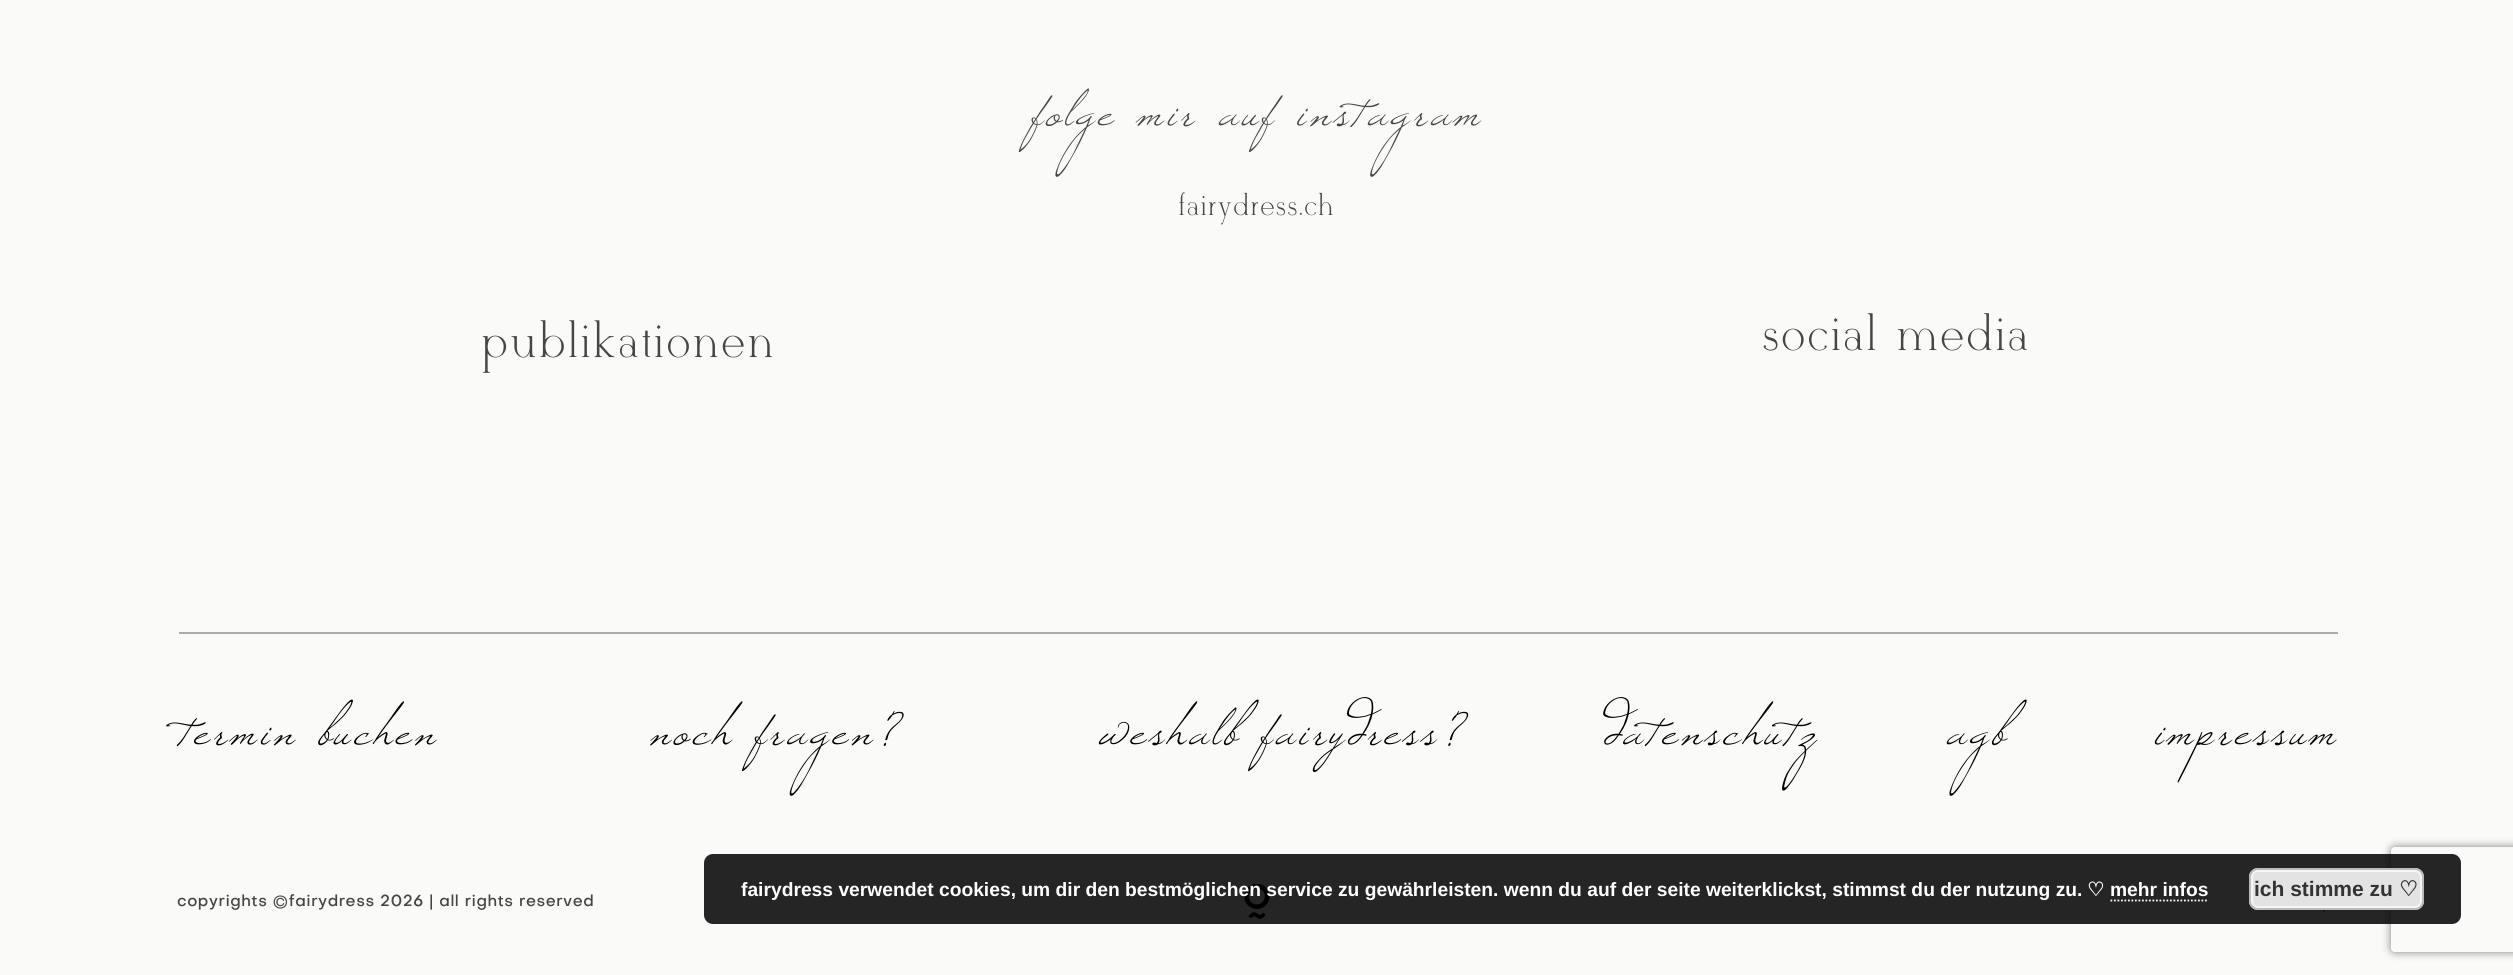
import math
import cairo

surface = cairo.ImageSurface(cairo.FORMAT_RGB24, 2513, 975)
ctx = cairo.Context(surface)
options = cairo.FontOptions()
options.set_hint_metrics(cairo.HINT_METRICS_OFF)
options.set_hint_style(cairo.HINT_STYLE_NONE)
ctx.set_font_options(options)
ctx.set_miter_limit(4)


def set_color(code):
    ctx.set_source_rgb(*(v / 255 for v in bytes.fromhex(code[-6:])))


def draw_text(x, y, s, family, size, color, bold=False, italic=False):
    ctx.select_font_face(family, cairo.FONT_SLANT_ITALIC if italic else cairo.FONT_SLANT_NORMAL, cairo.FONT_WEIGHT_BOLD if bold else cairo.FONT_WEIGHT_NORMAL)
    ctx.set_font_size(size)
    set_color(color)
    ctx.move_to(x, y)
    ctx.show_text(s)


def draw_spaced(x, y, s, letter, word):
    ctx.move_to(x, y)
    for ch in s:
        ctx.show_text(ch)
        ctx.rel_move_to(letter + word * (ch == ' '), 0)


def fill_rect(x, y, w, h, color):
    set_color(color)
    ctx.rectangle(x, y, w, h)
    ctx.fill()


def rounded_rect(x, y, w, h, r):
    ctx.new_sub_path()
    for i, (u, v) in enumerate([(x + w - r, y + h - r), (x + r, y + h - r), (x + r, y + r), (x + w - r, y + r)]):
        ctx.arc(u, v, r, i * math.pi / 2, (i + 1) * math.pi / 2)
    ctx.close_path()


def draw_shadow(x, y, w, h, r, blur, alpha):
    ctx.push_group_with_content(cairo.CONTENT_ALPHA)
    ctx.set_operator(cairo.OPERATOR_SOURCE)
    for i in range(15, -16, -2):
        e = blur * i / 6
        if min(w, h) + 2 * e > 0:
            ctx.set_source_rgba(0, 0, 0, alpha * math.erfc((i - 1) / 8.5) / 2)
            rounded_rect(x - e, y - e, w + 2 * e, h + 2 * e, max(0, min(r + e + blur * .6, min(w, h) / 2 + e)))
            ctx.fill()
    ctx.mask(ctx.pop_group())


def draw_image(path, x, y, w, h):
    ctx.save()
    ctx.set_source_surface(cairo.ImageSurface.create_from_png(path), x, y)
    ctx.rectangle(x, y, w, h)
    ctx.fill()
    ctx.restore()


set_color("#fafaf8")
ctx.paint()
ctx.select_font_face("Windsong")
ctx.set_font_size(59)
set_color("#464646")
draw_spaced(1031, 125, "folge mir auf instagram", 3.7, 0)
ctx.select_font_face("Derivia")
ctx.set_font_size(29.5)
draw_spaced(1176, 215, "@fairydress.ch", 2.25, 0)
ctx.set_font_size(49)
draw_spaced(482, 357, "publikationen", 3.9, 0)
draw_spaced(1763, 350, "social media", 3.9, 0)
fill_rect(179, 632, 2159, 2, "#ababab")
ctx.select_font_face("Windsong")
ctx.set_font_size(59)
set_color("#000000")
draw_spaced(178, 744, "termin buchen", 3.7, 0)
draw_spaced(649, 744, "noch fragen?", 3.7, 0)
draw_spaced(1098, 744, "weshalb fairydress?", 3.7, 0)
draw_spaced(1604, 744, "datenschutz", 3.7, 0)
draw_spaced(1946, 744, "agb", 3.7, 0)
draw_spaced(2154, 744, "impressum", 3.7, 0)
ctx.select_font_face("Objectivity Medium")
ctx.set_font_size(15.7)
set_color("#464646")
draw_spaced(177, 906, "copyrights ©fairydress 2026 | all rights reserved", 0.5, 0)
draw_image("assets/img1.png", 1244, 884, 26, 35)
draw_image("assets/img2.png", 2323, 910, 3, 2)
ctx.save()
ctx.set_fill_rule(cairo.FILL_RULE_EVEN_ODD)
ctx.new_path()
ctx.move_to(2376, 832)
ctx.line_to(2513, 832)
ctx.line_to(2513, 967)
ctx.line_to(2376, 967)
ctx.close_path()
ctx.move_to(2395, 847)
ctx.line_to(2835, 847)
ctx.curve_to(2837, 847, 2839, 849, 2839, 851)
ctx.line_to(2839, 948)
ctx.curve_to(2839, 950, 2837, 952, 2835, 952)
ctx.line_to(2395, 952)
ctx.curve_to(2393, 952, 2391, 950, 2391, 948)
ctx.line_to(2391, 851)
ctx.curve_to(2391, 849, 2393, 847, 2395, 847)
ctx.close_path()
ctx.clip()
set_color("#808080")
draw_shadow(2391, 847, 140, 105, 4, 4.5, 1)
ctx.restore()
ctx.set_source_rgba(0, 0, 0, 0.85)
rounded_rect(704, 854, 1757, 70, 9)
ctx.fill()
draw_text(741, 896, "fairydress verwendet cookies, um dir den bestmöglichen service zu gewährleisten. wenn du auf der seite weiterklickst, stimmst du der nutzung zu.", "Liberation Sans", 19.25, "#ffffff", bold=True)
draw_text(2087, 896, "♡", "DejaVu Sans", 19.25, "#ffffff", bold=True)
draw_text(2110, 896, "mehr infos", "Liberation Sans", 19.25, "#ffffff", bold=True)
ctx.new_path()
ctx.move_to(2110.5, 900.5)
ctx.line_to(2208.5, 900.5)
ctx.set_line_width(1.8)
ctx.set_dash([1.75, 1.75])
ctx.stroke()
set_color("#e3e3e3")
rounded_rect(2249, 868, 175, 42, 9)
ctx.fill()
rounded_rect(2252, 871, 169, 36, 6)
set_color("#f6f6f6")
ctx.set_line_width(2)
ctx.set_dash([])
ctx.stroke()
rounded_rect(2250, 869, 173, 40, 8)
set_color("#bbbbbb")
ctx.stroke()
draw_text(2254, 896, "ich stimme zu", "Liberation Sans", 21, "#333333", bold=True)
draw_text(2399, 896, "♡", "DejaVu Sans", 21, "#333333", bold=True)
surface.write_to_png("output.png")
